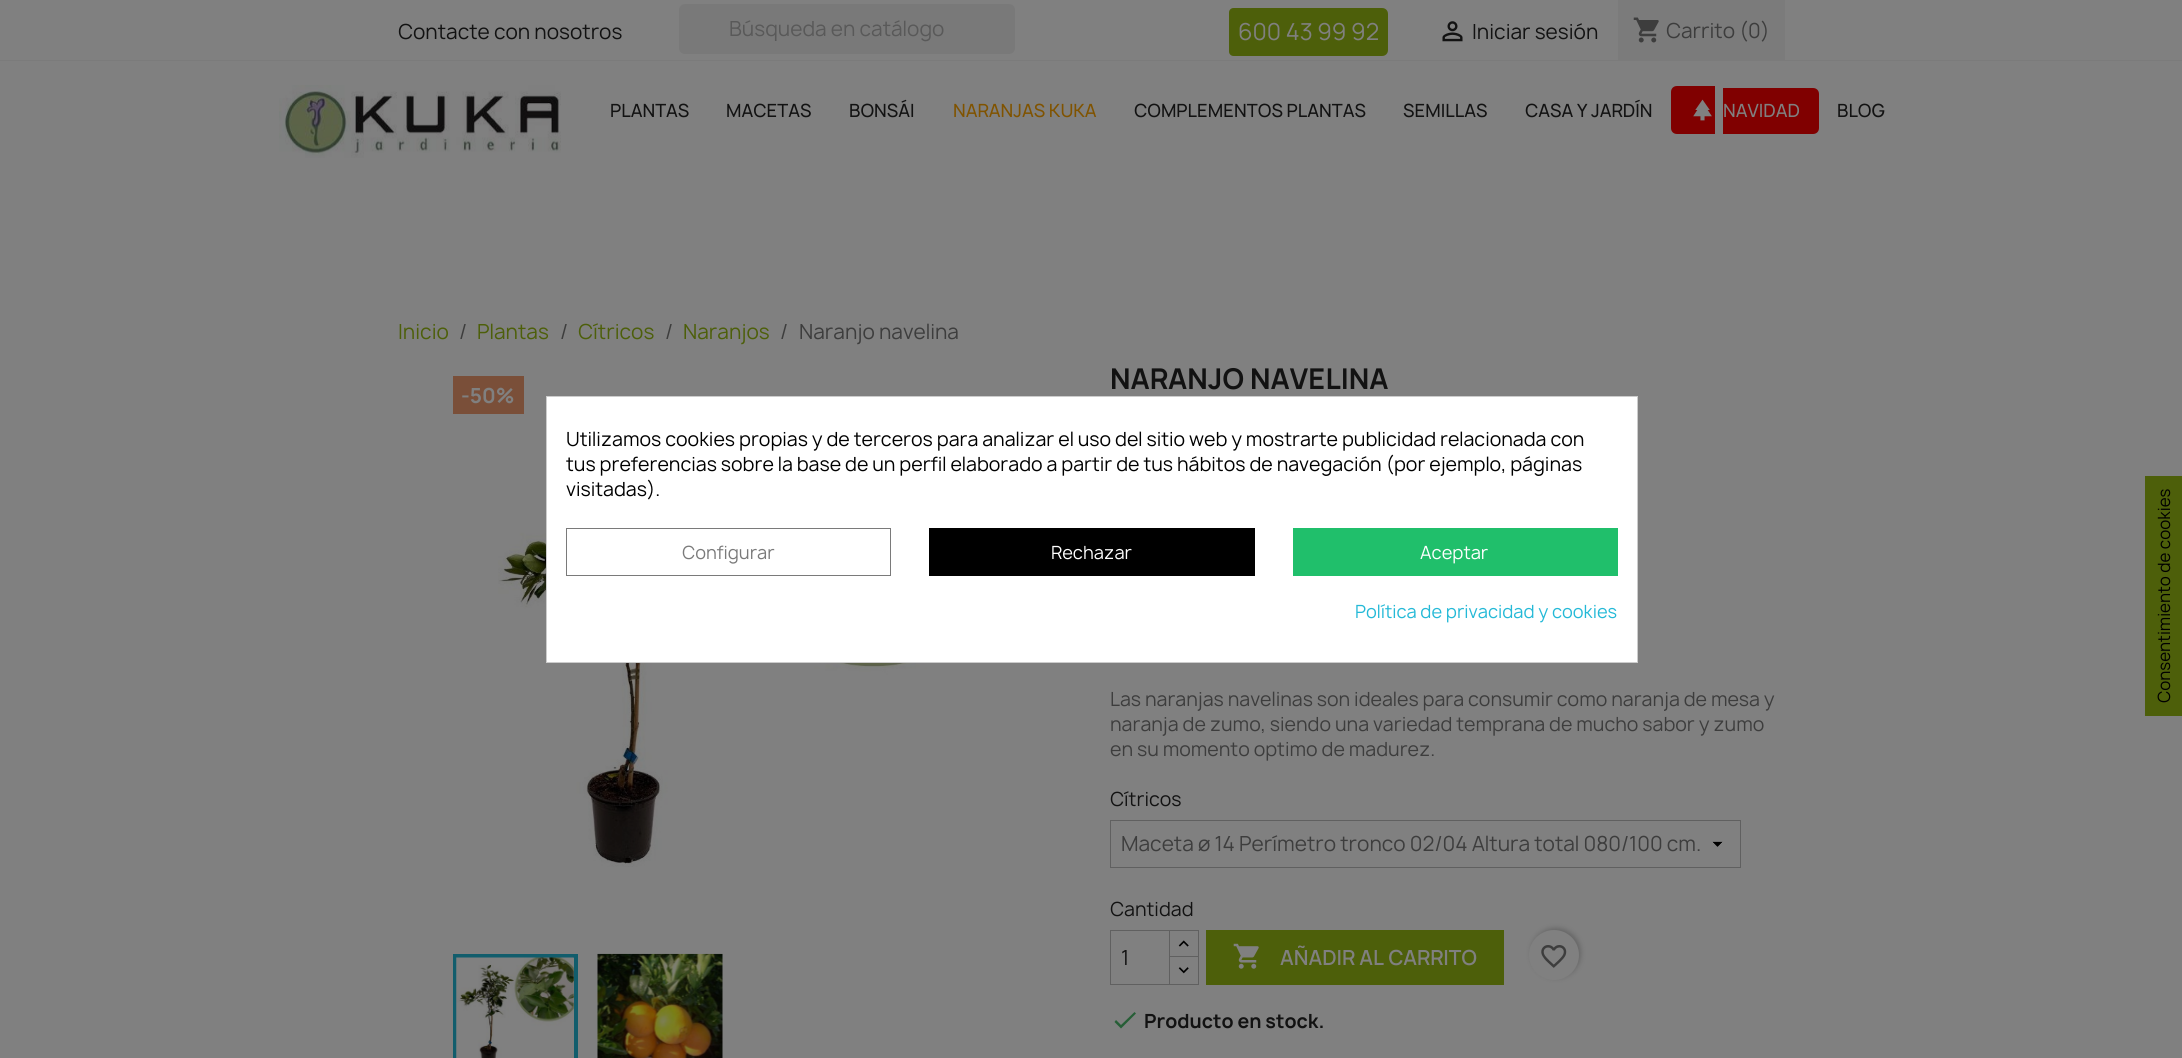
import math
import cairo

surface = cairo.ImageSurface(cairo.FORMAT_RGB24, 2182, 1058)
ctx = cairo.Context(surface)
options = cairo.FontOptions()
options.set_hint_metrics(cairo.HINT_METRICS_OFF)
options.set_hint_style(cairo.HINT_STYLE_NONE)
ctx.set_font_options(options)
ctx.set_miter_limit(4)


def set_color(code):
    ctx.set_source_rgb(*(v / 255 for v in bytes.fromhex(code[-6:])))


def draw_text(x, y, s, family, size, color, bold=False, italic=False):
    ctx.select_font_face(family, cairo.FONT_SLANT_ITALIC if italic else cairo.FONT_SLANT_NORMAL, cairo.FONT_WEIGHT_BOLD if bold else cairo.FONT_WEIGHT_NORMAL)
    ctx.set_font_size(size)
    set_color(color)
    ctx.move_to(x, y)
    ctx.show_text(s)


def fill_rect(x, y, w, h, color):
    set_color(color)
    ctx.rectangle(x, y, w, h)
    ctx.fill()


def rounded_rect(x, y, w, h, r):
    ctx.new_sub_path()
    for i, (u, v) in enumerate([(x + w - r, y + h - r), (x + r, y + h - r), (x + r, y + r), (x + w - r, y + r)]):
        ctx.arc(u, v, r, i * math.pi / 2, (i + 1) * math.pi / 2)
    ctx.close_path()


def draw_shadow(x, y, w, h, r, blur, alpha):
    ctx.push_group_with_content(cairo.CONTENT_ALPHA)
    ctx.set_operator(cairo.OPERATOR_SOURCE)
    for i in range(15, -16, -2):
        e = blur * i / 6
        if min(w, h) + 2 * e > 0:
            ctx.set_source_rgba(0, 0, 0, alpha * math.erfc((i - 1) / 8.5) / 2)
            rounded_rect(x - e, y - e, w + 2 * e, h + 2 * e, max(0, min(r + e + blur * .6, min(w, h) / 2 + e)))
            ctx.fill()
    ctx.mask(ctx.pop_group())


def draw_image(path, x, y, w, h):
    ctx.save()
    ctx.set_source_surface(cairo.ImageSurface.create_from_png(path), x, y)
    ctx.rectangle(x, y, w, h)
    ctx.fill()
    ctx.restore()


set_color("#808080")
ctx.paint()
fill_rect(0, 60, 2182, 1, "#7b7b7b")
draw_text(398, 39, "Contacte con nosotros", "Manrope", 20, "#121212")
set_color("#797979")
rounded_rect(679, 4, 336, 50, 6)
ctx.fill()
draw_text(729, 36, "Búsqueda en catálogo", "Manrope", 20, "#595959")
set_color("#4d5f0a")
ctx.new_path()
ctx.move_to(1238, 8)
ctx.line_to(1382, 8)
ctx.curve_to(1385.5, 8, 1388, 10.5, 1388, 14)
ctx.line_to(1388, 50)
ctx.curve_to(1388, 53.5, 1385.5, 56, 1382, 56)
ctx.line_to(1238, 56)
ctx.close_path()
ctx.fill()
draw_text(1238, 40, "600 43 99 92", "Manrope", 22.5, "#808080")
set_color("#4d5f0a")
ctx.new_path()
ctx.move_to(1233.5, 8)
ctx.line_to(1238, 8)
ctx.line_to(1238, 56)
ctx.line_to(1233.5, 56)
ctx.curve_to(1231, 56, 1229, 54, 1229, 51.5)
ctx.line_to(1229, 12.5)
ctx.curve_to(1229, 10, 1231, 8, 1233.5, 8)
ctx.close_path()
ctx.fill()
draw_image("assets/img1.png", 1442, 21, 21, 21)
draw_text(1472, 39, "Iniciar sesión", "Manrope", 20, "#121212")
fill_rect(1618, 0, 167, 60, "#7b7b7b")
draw_image("assets/img2.png", 1633, 17, 26, 26)
draw_text(1666, 38, "Carrito (0)", "Manrope", 20, "#3d3d3d")
draw_image("assets/img3.png", 279, 85, 282, 73)
draw_text(610, 117, "PLANTAS", "Manrope Medium", 17.5, "#121212")
draw_text(726, 117, "MACETAS", "Manrope Medium", 17.5, "#121212")
draw_text(849, 117, "BONSÁI", "Manrope Medium", 17.5, "#121212")
draw_text(953, 117, "NARANJAS KUKA", "Manrope Medium", 17.5, "#805300")
draw_text(1134, 117, "COMPLEMENTOS PLANTAS", "Manrope Medium", 17.5, "#121212")
draw_text(1403, 117, "SEMILLAS", "Manrope Medium", 17.5, "#121212")
draw_text(1525, 117, "CASA Y JARDÍN", "Manrope Medium", 17.5, "#121212")
set_color("#800000")
ctx.new_path()
ctx.move_to(1677, 86)
ctx.line_to(1715, 86)
ctx.line_to(1715, 134)
ctx.line_to(1677, 134)
ctx.curve_to(1673.5, 134, 1671, 131.5, 1671, 128)
ctx.line_to(1671, 92)
ctx.curve_to(1671, 88.5, 1673.5, 86, 1677, 86)
ctx.close_path()
ctx.fill()
ctx.new_path()
ctx.move_to(1723, 88)
ctx.line_to(1813, 88)
ctx.curve_to(1816.5, 88, 1819, 90.5, 1819, 94)
ctx.line_to(1819, 128)
ctx.curve_to(1819, 131.5, 1816.5, 134, 1813, 134)
ctx.line_to(1723, 134)
ctx.close_path()
ctx.fill()
draw_image("assets/img4.png", 1693, 99, 19, 22)
draw_text(1723, 117, "NAVIDAD", "Manrope Medium", 17.5, "#808080")
draw_text(1837, 117, "BLOG", "Manrope Medium", 17.5, "#121212")
draw_text(398, 339, "Inicio", "Manrope", 20, "#4d5f0a")
draw_text(459, 339, "/", "Manrope", 20, "#3d3d3d")
draw_text(477, 339, "Plantas", "Manrope", 20, "#4d5f0a")
draw_text(560, 339, "/", "Manrope", 20, "#3d3d3d")
draw_text(578, 339, "Cítricos", "Manrope", 20, "#4d5f0a")
draw_text(665, 339, "/", "Manrope", 20, "#3d3d3d")
draw_text(683, 339, "Naranjos", "Manrope", 20, "#4d5f0a")
draw_text(780, 339, "/", "Manrope", 20, "#3d3d3d")
draw_text(799, 339, "Naranjo navelina", "Manrope", 20, "#3d3d3d")
draw_image("assets/img5.png", 498, 398, 486, 469)
fill_rect(453, 376, 71, 38, "#7a4f39")
draw_text(461, 403, "-50%", "Manrope", 20, "#808080", bold=True)
ctx.rectangle(455, 956, 121, 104)
set_color("#125d6c")
ctx.set_line_width(4)
ctx.stroke()
draw_image("assets/img6.png", 597, 953, 126, 105)
draw_image("assets/img7.png", 456, 957, 118, 101)
draw_text(1110, 389, "NARANJO NAVELINA", "Manrope", 27.5, "#121212", bold=True)
draw_text(1110, 706, "Las naranjas navelinas son ideales para consumir como naranja de mesa y", "Manrope", 18.75, "#3d3d3d")
draw_text(1110, 731, "naranja de zumo, siendo una variedad temprana de mucho sabor y zumo", "Manrope", 18.75, "#3d3d3d")
draw_text(1110, 756, "en su momento optimo de madurez.", "Manrope", 18.75, "#3d3d3d")
draw_text(1110, 806, "Cítricos", "Manrope", 18.75, "#121212")
draw_image("assets/img8.png", 1712, 841, 11, 6)
ctx.rectangle(1110.5, 820.5, 630, 47)
set_color("#606060")
ctx.set_line_width(1)
ctx.stroke()
draw_text(1121, 851, "Maceta ø 14 Perímetro tronco 02/04 Altura total 080/100 cm.", "Manrope", 20, "#3d3d3d")
draw_text(1110, 916, "Cantidad", "Manrope", 18.75, "#121212")
ctx.rectangle(1169.5, 930.5, 29, 28)
set_color("#606060")
ctx.stroke()
fill_rect(1170, 958, 28, 1, "#808080")
ctx.rectangle(1169.5, 956.5, 29, 28)
set_color("#606060")
ctx.stroke()
ctx.rectangle(1110.5, 930.5, 59, 54)
ctx.stroke()
draw_text(1121, 965, "1", "Manrope", 20, "#121212")
draw_image("assets/img9.png", 1178, 940, 11, 7)
draw_image("assets/img10.png", 1178, 967, 11, 7)
fill_rect(1206, 930, 298, 55, "#4d5f0a")
draw_image("assets/img11.png", 1233, 943, 26, 26)
draw_text(1280, 965, "AÑADIR AL CARRITO", "Manrope SemiBold", 20, "#808080")
set_color("#000000")
draw_shadow(1531, 928, 50, 50, 25, 2.5, 0.2)
set_color("#808080")
ctx.arc(1554, 955, 25, 0, 2 * math.pi)
ctx.fill()
draw_image("assets/img12.png", 1541, 945, 26, 23)
set_color("#265e36")
ctx.new_path()
ctx.move_to(1121, 1025)
ctx.line_to(1134.5, 1012)
ctx.line_to(1136, 1013.5)
ctx.line_to(1121, 1028.5)
ctx.line_to(1114.5, 1022)
ctx.line_to(1116, 1020)
ctx.close_path()
ctx.fill()
draw_text(1144, 1028, "Producto en stock.", "Manrope", 18.75, "#121212", bold=True)
set_color("#ffffff")
ctx.rectangle(546.5, 396.5, 1091, 266)
ctx.fill_preserve()
set_color("#cccccc")
ctx.stroke()
draw_text(566, 446, "Utilizamos cookies propias y de terceros para analizar el uso del sitio web y mostrarte publicidad relacionada con", "Manrope", 18.75, "#000000")
draw_text(566, 471, "tus preferencias sobre la base de un perfil elaborado a partir de tus hábitos de navegación (por ejemplo, páginas", "Manrope", 18.75, "#000000")
draw_text(566, 496, "visitadas).", "Manrope", 18.75, "#000000")
ctx.rectangle(566.5, 528.5, 324, 47)
set_color("#7a7a7a")
ctx.stroke()
draw_text(682, 559, "Configurar", "Manrope", 17.5, "#7a7a7a")
fill_rect(929, 528, 326, 48, "#000000")
draw_text(1051, 559, "Rechazar", "Manrope", 17.5, "#ffffff")
fill_rect(1293, 528, 325, 48, "#20bf6b")
draw_text(1420, 559, "Aceptar", "Manrope", 17.5, "#ffffff")
draw_text(1355, 618, "Política de privacidad y cookies", "Manrope", 17.5, "#24b9d7")
fill_rect(2145, 476, 37, 240, "#4d5f0a")
ctx.save()
ctx.translate(2170, 703)
ctx.rotate(-90 * math.pi / 180)
draw_text(0, 0, "Consentimiento de cookies", "Manrope", 16.25, "#000000")
ctx.restore()
surface.write_to_png("output.png")
